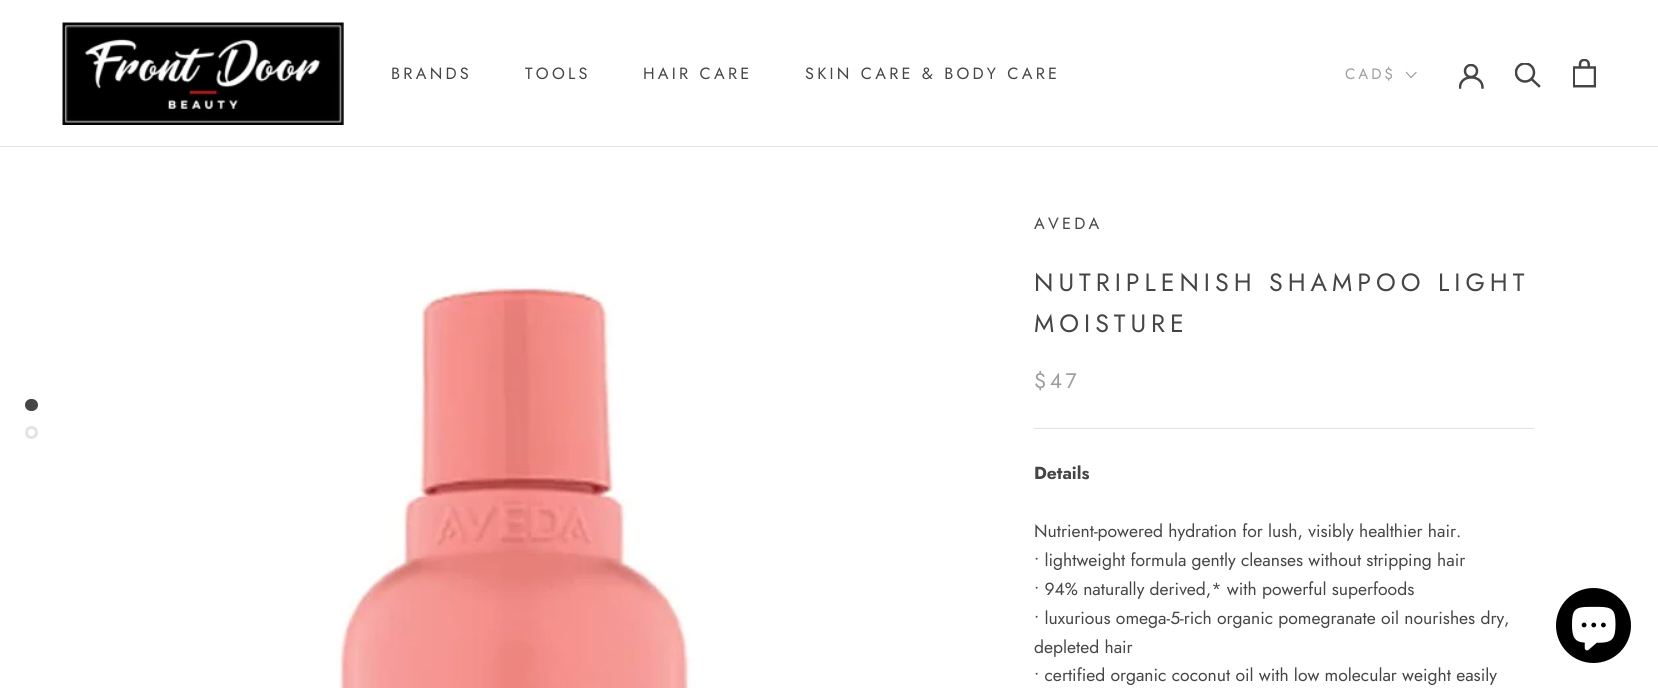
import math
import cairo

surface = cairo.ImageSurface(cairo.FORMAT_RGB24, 1658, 688)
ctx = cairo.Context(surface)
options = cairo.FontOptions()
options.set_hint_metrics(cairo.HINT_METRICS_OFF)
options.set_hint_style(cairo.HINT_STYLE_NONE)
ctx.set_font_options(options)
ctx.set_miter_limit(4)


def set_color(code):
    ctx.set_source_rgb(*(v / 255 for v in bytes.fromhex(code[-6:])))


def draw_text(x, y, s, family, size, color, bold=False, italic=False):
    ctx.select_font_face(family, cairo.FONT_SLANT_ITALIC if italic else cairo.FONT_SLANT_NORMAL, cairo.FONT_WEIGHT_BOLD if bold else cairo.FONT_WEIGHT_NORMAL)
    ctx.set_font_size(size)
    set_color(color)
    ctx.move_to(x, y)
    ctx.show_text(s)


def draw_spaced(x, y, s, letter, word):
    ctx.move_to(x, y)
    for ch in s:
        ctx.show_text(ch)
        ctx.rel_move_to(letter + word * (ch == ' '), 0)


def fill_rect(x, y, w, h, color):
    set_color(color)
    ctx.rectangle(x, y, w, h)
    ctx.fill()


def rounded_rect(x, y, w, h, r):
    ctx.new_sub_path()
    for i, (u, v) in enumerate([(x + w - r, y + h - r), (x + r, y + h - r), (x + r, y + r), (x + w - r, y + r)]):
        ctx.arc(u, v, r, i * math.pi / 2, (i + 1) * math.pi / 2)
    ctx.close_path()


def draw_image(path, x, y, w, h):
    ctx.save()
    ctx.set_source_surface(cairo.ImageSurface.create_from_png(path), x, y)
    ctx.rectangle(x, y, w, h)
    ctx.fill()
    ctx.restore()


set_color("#ffffff")
ctx.paint()
fill_rect(0, 146, 1658, 1, "#e3e3e3")
draw_image("assets/img1.png", 62, 22, 282, 103)
ctx.select_font_face("Jost")
ctx.set_font_size(16.25)
set_color("#454545")
draw_spaced(391, 79, "BRANDS", 3.25, 0)
draw_spaced(525, 79, "TOOLS", 3.25, 0)
draw_spaced(643, 79, "HAIR CARE", 3.25, 0)
draw_spaced(805, 79, "SKIN CARE & BODY CARE", 3.25, 0)
ctx.set_font_size(15)
set_color("#9d9d9d")
draw_spaced(1345, 79, "CAD$", 3, 0)
ctx.new_path()
ctx.move_to(1416, 72.5)
ctx.line_to(1411, 77.5)
ctx.line_to(1406.5, 72.5)
ctx.set_line_width(1.2)
ctx.set_line_cap(cairo.LINE_CAP_SQUARE)
ctx.stroke()
ctx.save()
ctx.rectangle(1459, 64, 25, 25)
ctx.clip()
ctx.new_path()
ctx.move_to(1460, 87.5)
ctx.curve_to(1460, 74, 1482.5, 74, 1482.5, 87.5)
set_color("#454545")
ctx.set_line_width(2.5)
ctx.stroke()
ctx.arc(1471, 71, 6, 0, 2 * math.pi)
ctx.set_line_cap(cairo.LINE_CAP_BUTT)
ctx.stroke()
ctx.restore()
ctx.new_path()
ctx.move_to(1539, 86)
ctx.line_to(1531.5, 79)
set_color("#454545")
ctx.set_line_width(2.5)
ctx.stroke()
ctx.save()
ctx.rectangle(1515, 63, 26, 26)
ctx.clip()
ctx.arc(1525, 72.5, 9, 0, 2 * math.pi)
ctx.set_line_cap(cairo.LINE_CAP_BUTT)
ctx.stroke()
ctx.restore()
draw_image("assets/img2.png", 1573, 59, 23, 29)
rounded_rect(26.5, 400.5, 10, 9, 4.5)
ctx.fill_preserve()
ctx.set_line_width(3)
ctx.set_line_cap(cairo.LINE_CAP_BUTT)
ctx.stroke()
ctx.arc(31.5, 432.5, 5, 0, 2 * math.pi)
set_color("#e3e3e3")
ctx.stroke()
draw_image("assets/img3.png", 336, 284, 355, 404)
ctx.set_font_size(16.25)
set_color("#454545")
draw_spaced(1034, 229, "AVEDA", 3.25, 0)
ctx.set_font_size(25)
draw_spaced(1034, 291, "NUTRIPLENISH SHAMPOO LIGHT", 5, 0)
draw_spaced(1034, 332, "MOISTURE", 5, 0)
ctx.set_font_size(21)
set_color("#9d9d9d")
draw_spaced(1034, 388, "$47", 3.5, 0)
fill_rect(1034, 428, 500, 1, "#e3e3e3")
draw_text(1034, 479, "Details", "Jost", 17.5, "#454545", bold=True)
draw_text(1034, 537, "Nutrient-powered hydration for lush, visibly healthier hair.", "Jost", 17.5, "#454545")
draw_text(1034, 566, "• lightweight formula gently cleanses without stripping hair", "Jost", 17.5, "#454545")
draw_text(1034, 595, "• 94% naturally derived,* with powerful superfoods", "Jost", 17.5, "#454545")
draw_text(1034, 624, "• luxurious omega-5-rich organic pomegranate oil nourishes dry,", "Jost", 17.5, "#454545")
draw_text(1034, 653, "depleted hair", "Jost", 17.5, "#454545")
draw_text(1034, 681, "• certified organic coconut oil with low molecular weight easily", "Jost", 17.5, "#454545")
set_color("#000000")
ctx.new_path()
ctx.arc(1593.5, 625.5, 37.5, 0, 2 * math.pi)
ctx.fill()
draw_image("assets/img4.png", 1572, 606, 44, 45)
surface.write_to_png("output.png")
